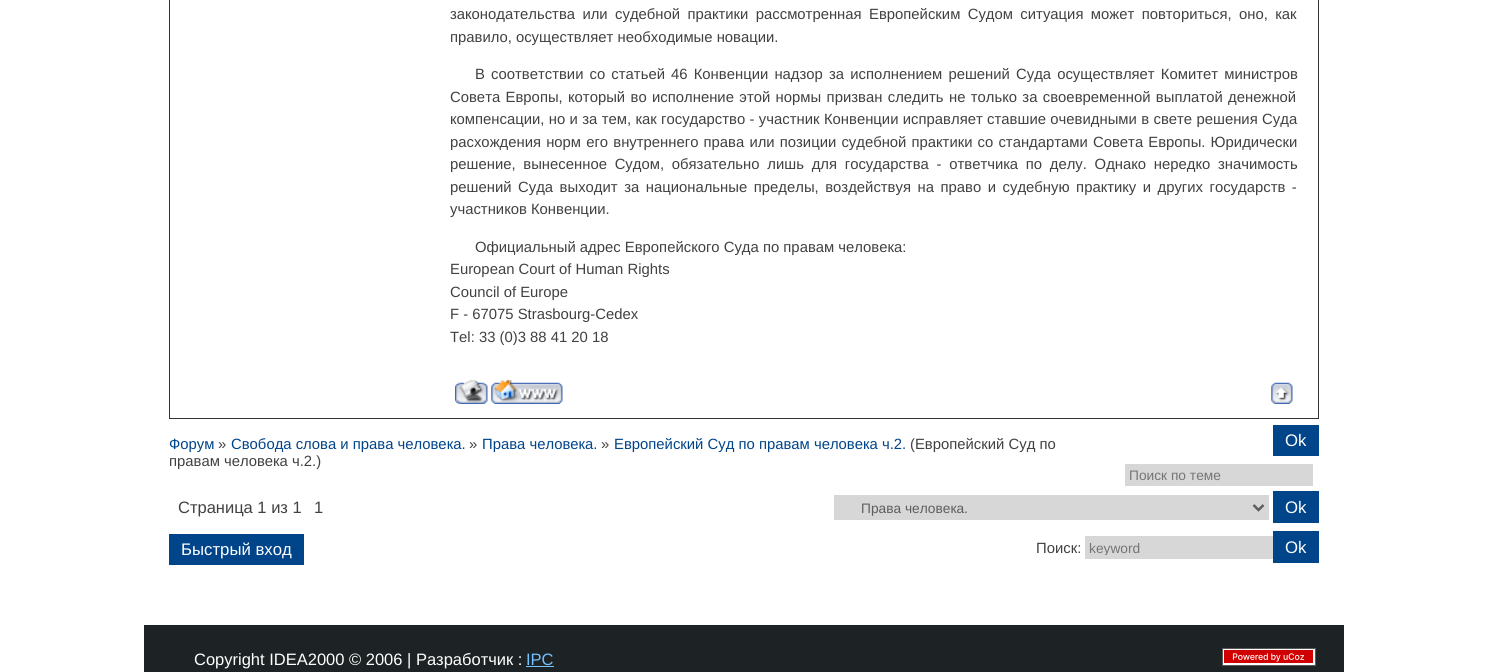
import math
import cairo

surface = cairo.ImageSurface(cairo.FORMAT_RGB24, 1487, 672)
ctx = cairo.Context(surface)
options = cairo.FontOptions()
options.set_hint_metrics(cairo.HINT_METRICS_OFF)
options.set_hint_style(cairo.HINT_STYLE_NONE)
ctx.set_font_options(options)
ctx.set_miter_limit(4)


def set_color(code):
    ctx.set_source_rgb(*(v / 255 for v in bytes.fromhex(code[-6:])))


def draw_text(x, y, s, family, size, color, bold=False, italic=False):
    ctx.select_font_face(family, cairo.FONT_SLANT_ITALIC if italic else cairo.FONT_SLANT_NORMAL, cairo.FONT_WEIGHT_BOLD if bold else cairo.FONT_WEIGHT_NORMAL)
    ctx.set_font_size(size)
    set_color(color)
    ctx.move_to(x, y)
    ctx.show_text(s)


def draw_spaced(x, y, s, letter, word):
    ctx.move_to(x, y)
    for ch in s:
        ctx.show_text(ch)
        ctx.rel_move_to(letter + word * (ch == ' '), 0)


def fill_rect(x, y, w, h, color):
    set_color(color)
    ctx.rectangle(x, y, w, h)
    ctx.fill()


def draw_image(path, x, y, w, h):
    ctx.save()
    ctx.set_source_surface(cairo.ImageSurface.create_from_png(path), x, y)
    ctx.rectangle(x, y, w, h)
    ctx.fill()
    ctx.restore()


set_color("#ffffff")
ctx.paint()
fill_rect(169, 0, 1150, 419, "#333333")
fill_rect(170, 0, 1148, 418, "#ffffff")
ctx.select_font_face("Liberation Sans")
ctx.set_font_size(14.85)
set_color("#414141")
draw_spaced(450, 19, "законодательства или судебной практики рассмотренная Европейским Судом ситуация может повториться, оно, как", 0, 3.25)
draw_text(450, 42, "правило, осуществляет необходимые новации.", "Liberation Sans", 14.85, "#414141")
draw_spaced(475, 79, "В соответствии со статьей 46 Конвенции надзор за исполнением решений Суда осуществляет Комитет министров", 0, 2)
draw_spaced(450, 102, "Совета Европы, который во исполнение этой нормы призван следить не только за своевременной выплатой денежной", 0, 1.25)
draw_spaced(450, 124, "компенсации, но и за тем, как государство - участник Конвенции исправляет ставшие очевидными в свете решения Суда", 0, 0.25)
draw_spaced(450, 147, "расхождения норм его внутреннего права или позиции судебной практики со стандартами Совета Европы. Юридически", 0, 1)
draw_spaced(450, 169, "решение, вынесенное Судом, обязательно лишь для государства - ответчика по делу. Однако нередко значимость", 0, 3.6)
draw_spaced(450, 192, "решений Суда выходит за национальные пределы, воздействуя на право и судебную практику и других государств -", 0, 2.4)
draw_text(450, 214, "участников Конвенции.", "Liberation Sans", 14.85, "#414141")
draw_text(475, 252, "Официальный адрес Европейского Суда по правам человека:", "Liberation Sans", 14.85, "#414141")
draw_text(450, 274, "European Court of Human Rights", "Liberation Sans", 14.85, "#414141")
draw_text(450, 297, "Council of Europe", "Liberation Sans", 14.85, "#414141")
draw_text(450, 319, "F - 67075 Strasbourg-Cedex", "Liberation Sans", 14.85, "#414141")
draw_text(450, 342, "Tel: 33 (0)3 88 41 20 18", "Liberation Sans", 14.85, "#414141")
draw_image("assets/img1.png", 455, 380, 33, 24)
draw_image("assets/img2.png", 491, 380, 72, 24)
draw_image("assets/img3.png", 1271, 382, 22, 22)
draw_text(169, 449, "Форум", "Liberation Sans", 14.85, "#00448a")
draw_text(218, 449, "»", "Liberation Sans", 14.85, "#414141")
draw_text(231, 449, "Свобода слова и права человека.", "Liberation Sans", 14.85, "#00448a")
draw_text(469, 449, "»", "Liberation Sans", 14.85, "#414141")
draw_text(482, 449, "Права человека.", "Liberation Sans", 14.85, "#00448a")
draw_text(601, 449, "»", "Liberation Sans", 14.85, "#414141")
draw_text(614, 449, "Европейский Суд по правам человека ч.2.", "Liberation Sans", 14.85, "#00448a")
draw_text(910, 449, "(Европейский Суд по", "Liberation Sans", 14.85, "#414141")
draw_text(169, 466, "правам человека ч.2.)", "Liberation Sans", 14.85, "#414141")
fill_rect(1273, 425, 46, 31, "#00448a")
draw_text(1285, 446, "Ok", "Liberation Sans", 16.75, "#ffffff")
fill_rect(1125, 464, 188, 22, "#d7d7d7")
draw_text(1129, 480, "Поиск по теме", "Liberation Sans", 13.75, "#757575")
draw_text(178, 513, "Страница 1 из 1", "Liberation Sans", 16.5, "#414141")
draw_text(314, 513, "1", "Liberation Sans", 16.5, "#414141")
fill_rect(834, 495, 435, 25, "#d7d7d7")
ctx.new_path()
ctx.move_to(1253.5, 505)
ctx.line_to(1258.5, 510)
ctx.line_to(1263.5, 505)
set_color("#5e5e5e")
ctx.set_line_width(2.5)
ctx.stroke()
draw_text(861, 513, "Права человека.", "Liberation Sans", 13.75, "#5e5e5e")
fill_rect(1273, 491, 46, 32, "#00448a")
draw_text(1285, 513, "Ok", "Liberation Sans", 16.75, "#ffffff")
fill_rect(169, 534, 135, 31, "#00448a")
draw_text(181, 555, "Быстрый вход", "Liberation Sans", 16.75, "#ffffff")
draw_text(1036, 553, "Поиск:", "Liberation Sans", 14.85, "#414141")
fill_rect(1085, 536, 188, 23, "#d7d7d7")
ctx.save()
ctx.rectangle(1089, 540, 180, 15)
ctx.clip()
draw_text(1089, 553, "keyword", "Liberation Sans", 13.75, "#757575")
ctx.restore()
fill_rect(1273, 531, 46, 32, "#00448a")
draw_text(1285, 553, "Ok", "Liberation Sans", 16.75, "#ffffff")
fill_rect(144, 625, 1200, 47, "#1d2324")
draw_text(194, 665, "Copyright IDEA2000 © 2006 | Разработчик :", "Liberation Sans", 16.5, "#ffffff")
draw_text(526, 665, "IPC", "Liberation Sans", 16.5, "#76c1ff")
fill_rect(526, 666, 28, 1, "#76c1ff")
draw_image("assets/img4.png", 1222, 648, 94, 18)
surface.write_to_png("output.png")
